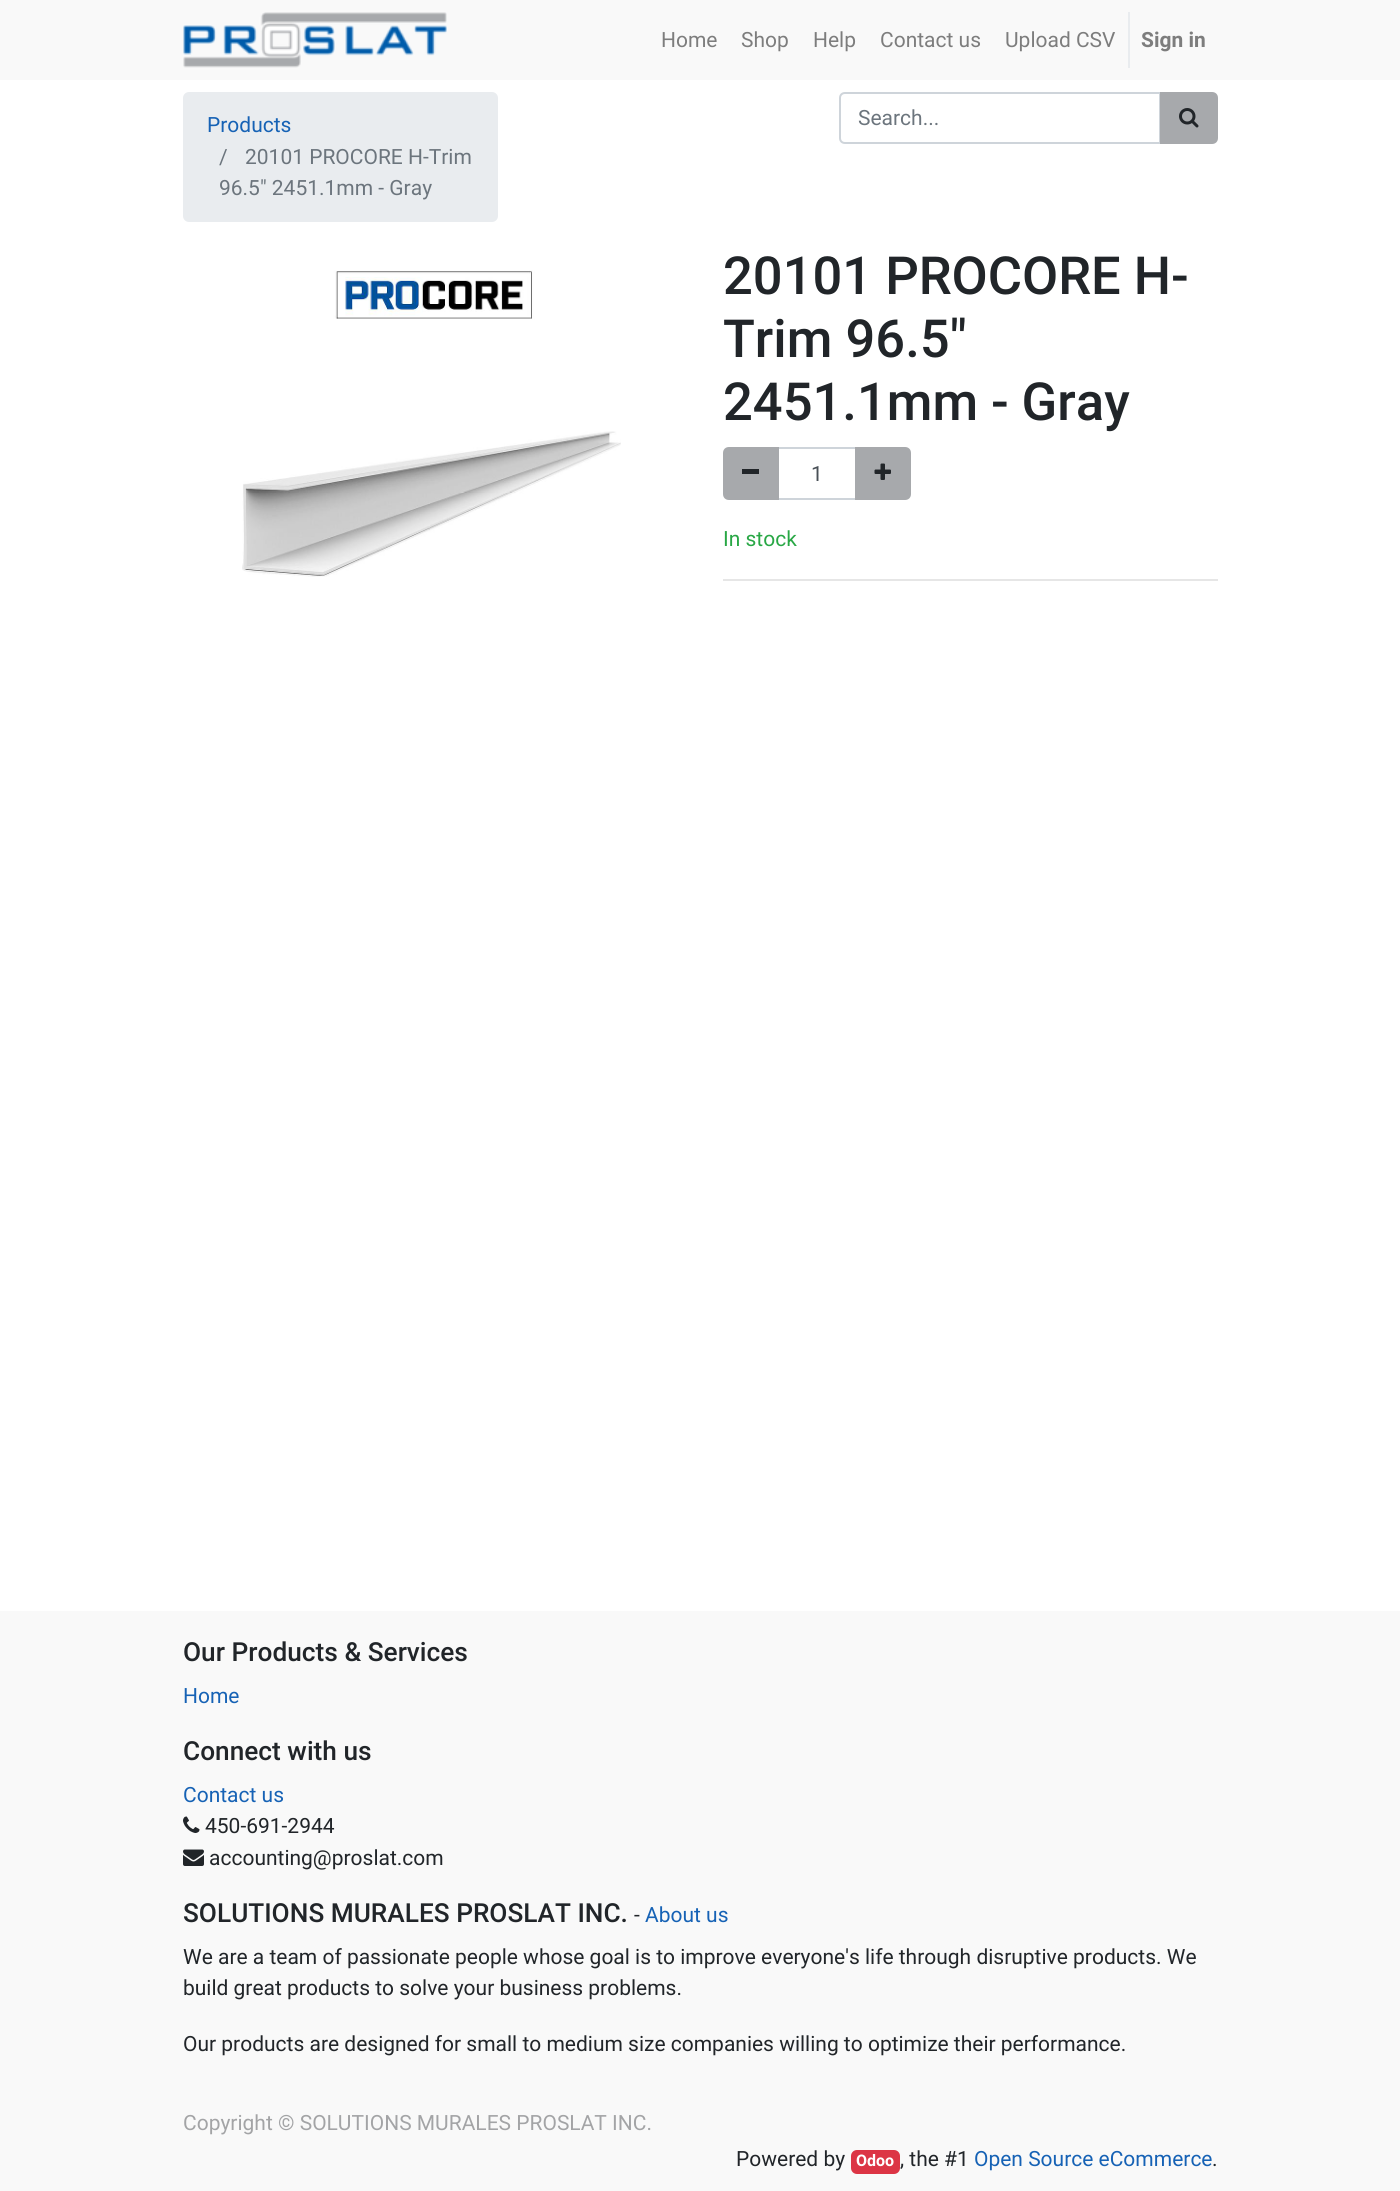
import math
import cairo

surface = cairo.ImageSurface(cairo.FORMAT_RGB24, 1400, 2191)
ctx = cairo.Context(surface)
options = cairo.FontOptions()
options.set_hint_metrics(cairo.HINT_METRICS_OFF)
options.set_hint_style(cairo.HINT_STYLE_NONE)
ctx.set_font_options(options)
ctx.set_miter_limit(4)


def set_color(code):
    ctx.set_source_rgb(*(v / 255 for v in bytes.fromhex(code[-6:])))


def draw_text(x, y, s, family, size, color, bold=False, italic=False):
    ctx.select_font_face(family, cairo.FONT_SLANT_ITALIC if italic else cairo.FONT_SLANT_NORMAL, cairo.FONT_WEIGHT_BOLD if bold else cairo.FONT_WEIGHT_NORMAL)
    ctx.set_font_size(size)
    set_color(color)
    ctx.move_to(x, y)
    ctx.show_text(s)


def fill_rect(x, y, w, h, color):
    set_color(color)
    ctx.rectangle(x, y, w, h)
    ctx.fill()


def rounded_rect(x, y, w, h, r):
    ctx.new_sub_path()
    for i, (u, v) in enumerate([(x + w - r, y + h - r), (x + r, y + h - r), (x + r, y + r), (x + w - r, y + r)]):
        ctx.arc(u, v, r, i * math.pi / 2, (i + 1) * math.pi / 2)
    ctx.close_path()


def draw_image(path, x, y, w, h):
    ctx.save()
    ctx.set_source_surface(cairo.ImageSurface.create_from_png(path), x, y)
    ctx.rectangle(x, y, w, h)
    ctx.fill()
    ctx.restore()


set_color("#ffffff")
ctx.paint()
fill_rect(0, 0, 1400, 80, "#f9f9f9")
draw_image("assets/img1.png", 183, 12, 264, 56)
draw_text(661, 47, "Home", "Roboto", 21, "#7d7d7d")
draw_text(741, 47, "Shop", "Roboto", 21, "#7d7d7d")
draw_text(813, 47, "Help", "Roboto", 21, "#7d7d7d")
draw_text(880, 47, "Contact us", "Roboto", 21, "#7d7d7d")
draw_text(1005, 47, "Upload CSV", "Roboto", 21, "#7d7d7d")
fill_rect(1128, 12, 2, 56, "#e9ecef")
draw_text(1141, 47, "Sign in", "Roboto", 21, "#7d7d7d", bold=True)
set_color("#e9ecef")
rounded_rect(183, 92, 315, 130, 6)
ctx.fill()
draw_text(207, 132, "Products", "Roboto", 21, "#1662b5")
draw_text(219, 164, "/", "Roboto", 21, "#6c757d")
draw_text(245, 164, "20101 PROCORE H-Trim", "Roboto", 21, "#6c757d")
draw_text(219, 195, "96.5\" 2451.1mm - Gray", "Roboto", 21, "#6c757d")
ctx.new_path()
ctx.move_to(845, 93)
ctx.line_to(1160, 93)
ctx.line_to(1160, 143)
ctx.line_to(845, 143)
ctx.curve_to(842, 143, 840, 141, 840, 138)
ctx.line_to(840, 98)
ctx.curve_to(840, 95, 842, 93, 845, 93)
ctx.close_path()
set_color("#ced4da")
ctx.stroke()
draw_text(858, 125, "Search...", "Roboto", 21, "#6c757d")
set_color("#a7a9ac")
ctx.new_path()
ctx.move_to(1161, 93)
ctx.line_to(1212, 93)
ctx.curve_to(1215, 93, 1217, 95, 1217, 98)
ctx.line_to(1217, 138)
ctx.curve_to(1217, 141, 1215, 143, 1212, 143)
ctx.line_to(1161, 143)
ctx.close_path()
ctx.fill_preserve()
ctx.stroke()
draw_image("assets/img2.png", 1179, 108, 20, 20)
draw_image("assets/img3.png", 242, 270, 379, 307)
draw_text(723, 294, "20101 PROCORE H-", "Roboto Medium", 52.5, "#212529")
draw_text(723, 357, "Trim 96.5\"", "Roboto Medium", 52.5, "#212529")
draw_text(723, 420, "2451.1mm - Gray", "Roboto Medium", 52.5, "#212529")
ctx.rectangle(778, 448, 78, 51)
set_color("#ced4da")
ctx.stroke()
set_color("#a7a9ac")
ctx.new_path()
ctx.move_to(729, 448)
ctx.line_to(778, 448)
ctx.line_to(778, 499)
ctx.line_to(729, 499)
ctx.curve_to(726, 499, 724, 497, 724, 494)
ctx.line_to(724, 453)
ctx.curve_to(724, 450, 726, 448, 729, 448)
ctx.close_path()
ctx.fill_preserve()
ctx.stroke()
fill_rect(742, 469, 17, 5, "#212529")
draw_text(811, 481, "1", "Roboto", 21, "#495057")
set_color("#a7a9ac")
ctx.new_path()
ctx.move_to(856, 448)
ctx.line_to(905, 448)
ctx.curve_to(908, 448, 910, 450, 910, 453)
ctx.line_to(910, 494)
ctx.curve_to(910, 497, 908, 499, 905, 499)
ctx.line_to(856, 499)
ctx.close_path()
ctx.fill_preserve()
ctx.stroke()
draw_image("assets/img4.png", 874, 463, 17, 17)
draw_text(723, 546, "In stock", "Roboto", 21, "#28a745")
fill_rect(723, 579, 495, 2, "#e6e6e6")
fill_rect(0, 1611, 1400, 580, "#f9f9f9")
draw_text(183, 1661, "Our Products & Services", "Roboto Medium", 26.25, "#212529")
draw_text(183, 1703, "Home", "Roboto", 21, "#1662b5")
draw_text(183, 1760, "Connect with us", "Roboto Medium", 26.25, "#212529")
draw_text(183, 1802, "Contact us", "Roboto", 21, "#1662b5")
draw_image("assets/img5.png", 183, 1816, 17, 17)
draw_text(205, 1833, "450-691-2944", "Roboto", 21, "#212529")
draw_image("assets/img6.png", 183, 1849, 21, 17)
draw_text(209, 1865, "accounting@proslat.com", "Roboto", 21, "#212529")
draw_text(183, 1922, "SOLUTIONS MURALES PROSLAT INC.", "Roboto Medium", 26.25, "#212529")
draw_text(634, 1922, "-", "Roboto", 21, "#212529")
draw_text(645, 1922, "About us", "Roboto", 21, "#1662b5")
draw_text(183, 1964, "We are a team of passionate people whose goal is to improve everyone's life through disruptive products. We", "Roboto", 21, "#212529")
draw_text(183, 1995, "build great products to solve your business problems.", "Roboto", 21, "#212529")
draw_text(183, 2051, "Our products are designed for small to medium size companies willing to optimize their performance.", "Roboto", 21, "#212529")
draw_text(183, 2130, "Copyright © SOLUTIONS MURALES PROSLAT INC.", "Roboto", 21, "#a3a4a6")
draw_text(736, 2166, "Powered by", "Roboto", 21, "#212529")
set_color("#dc3545")
rounded_rect(851, 2150, 49, 24, 6)
ctx.fill()
draw_text(856, 2166, "Odoo", "Roboto", 16, "#ffffff", bold=True)
draw_text(900, 2166, ", the #1", "Roboto", 21, "#212529")
draw_text(974, 2166, "Open Source eCommerce", "Roboto", 21, "#1662b5")
draw_text(1212, 2166, ".", "Roboto", 21, "#212529")
surface.write_to_png("output.png")
